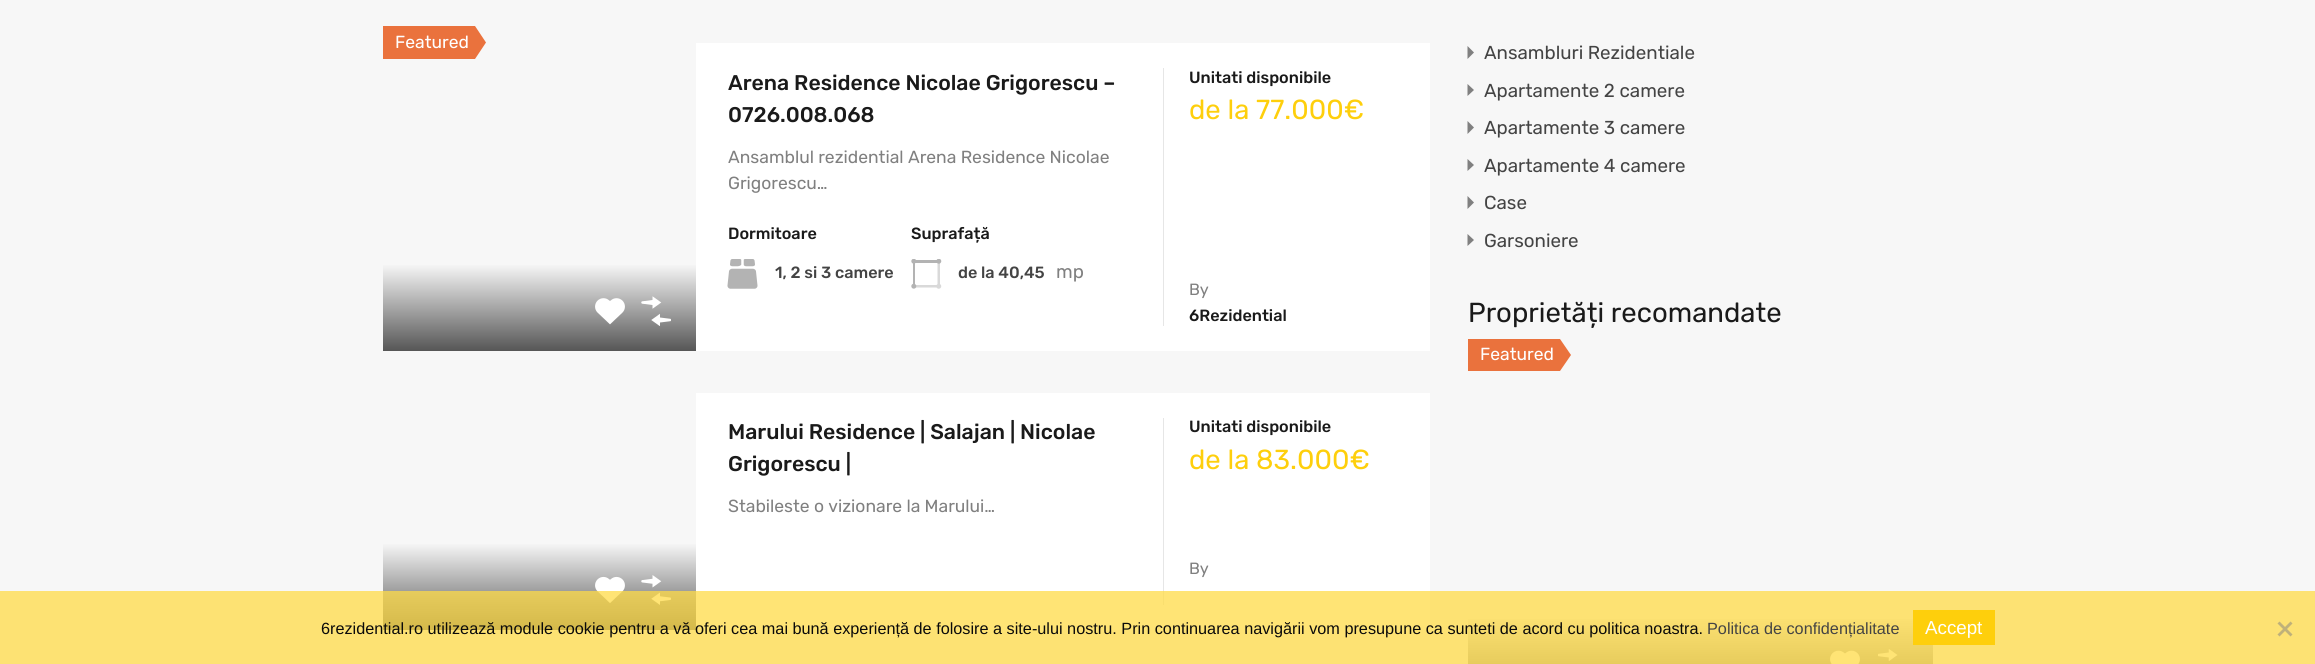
import math
import cairo

surface = cairo.ImageSurface(cairo.FORMAT_RGB24, 2315, 664)
ctx = cairo.Context(surface)
options = cairo.FontOptions()
options.set_hint_metrics(cairo.HINT_METRICS_OFF)
options.set_hint_style(cairo.HINT_STYLE_NONE)
ctx.set_font_options(options)
ctx.set_miter_limit(4)


def set_color(code):
    ctx.set_source_rgb(*(v / 255 for v in bytes.fromhex(code[-6:])))


def draw_text(x, y, s, family, size, color, bold=False, italic=False):
    ctx.select_font_face(family, cairo.FONT_SLANT_ITALIC if italic else cairo.FONT_SLANT_NORMAL, cairo.FONT_WEIGHT_BOLD if bold else cairo.FONT_WEIGHT_NORMAL)
    ctx.set_font_size(size)
    set_color(color)
    ctx.move_to(x, y)
    ctx.show_text(s)


def fill_rect(x, y, w, h, color):
    set_color(color)
    ctx.rectangle(x, y, w, h)
    ctx.fill()


def draw_image(path, x, y, w, h):
    ctx.save()
    ctx.set_source_surface(cairo.ImageSurface.create_from_png(path), x, y)
    ctx.rectangle(x, y, w, h)
    ctx.fill()
    ctx.restore()


set_color("#f7f7f7")
ctx.paint()
fill_rect(383, 26, 92, 33, "#ea723d")
draw_text(395, 48, "Featured", "Rubik", 17.5, "#ffffff")
set_color("#ea723d")
ctx.new_path()
ctx.move_to(475, 59)
ctx.line_to(475, 26)
ctx.line_to(486, 42.5)
ctx.close_path()
ctx.fill()
gradient = cairo.LinearGradient(539, 264, 539, 351)
gradient.add_color_stop_rgba(0, 0.969, 0.969, 0.969, 1)
gradient.add_color_stop_rgba(1, 0.337, 0.337, 0.337, 1)
ctx.set_source(gradient)
ctx.rectangle(383, 265, 313, 86)
ctx.fill()
draw_image("assets/img1.png", 595, 298, 30, 27)
draw_image("assets/img2.png", 641, 296, 30, 30)
fill_rect(696, 43, 734, 308, "#ffffff")
fill_rect(1163, 68, 1, 258, "#e6e6e6")
draw_text(728, 90, "Arena Residence Nicolae Grigorescu –", "Rubik Medium", 21.25, "#1a1a1a")
draw_text(728, 122, "0726.008.068", "Rubik Medium", 21.25, "#1a1a1a")
draw_text(728, 163, "Ansamblul rezidential Arena Residence Nicolae", "Rubik", 17.5, "#808080")
draw_text(728, 189, "Grigorescu…", "Rubik", 17.5, "#808080")
draw_text(728, 239, "Dormitoare", "Rubik Medium", 16.25, "#1a1a1a")
draw_image("assets/img3.png", 727, 259, 31, 30)
draw_text(775, 278, "1, 2 si 3 camere", "Rubik Medium", 16.25, "#444444")
draw_text(911, 239, "Suprafață", "Rubik Medium", 16.25, "#1a1a1a")
draw_image("assets/img4.png", 911, 259, 31, 30)
draw_text(958, 278, "de la 40,45", "Rubik Medium", 16.25, "#444444")
draw_text(1056, 278, "mp", "Rubik", 18.75, "#808080")
draw_text(1189, 83, "Unitati disponibile", "Rubik Medium", 16.25, "#1a1a1a")
draw_text(1189, 119, "de la 77.000€", "Rubik", 27.5, "#fecf0c")
draw_text(1189, 295, "By", "Rubik", 16.25, "#808080")
draw_text(1189, 321, "6Rezidential", "Rubik Medium", 16.25, "#1a1a1a")
fill_rect(696, 393, 734, 237, "#ffffff")
fill_rect(1163, 418, 1, 187, "#e6e6e6")
draw_text(728, 439, "Marului Residence | Salajan | Nicolae", "Rubik Medium", 21.25, "#1a1a1a")
draw_text(728, 471, "Grigorescu |", "Rubik Medium", 21.25, "#1a1a1a")
draw_text(728, 512, "Stabileste o vizionare la Marului…", "Rubik", 17.5, "#808080")
draw_text(1189, 432, "Unitati disponibile", "Rubik Medium", 16.25, "#1a1a1a")
draw_text(1189, 469, "de la 83.000€", "Rubik", 27.5, "#fecf0c")
draw_text(1189, 574, "By", "Rubik", 16.25, "#808080")
gradient = cairo.LinearGradient(539, 543, 539, 630)
gradient.add_color_stop_rgba(0, 0.969, 0.969, 0.969, 1)
gradient.add_color_stop_rgba(1, 0.337, 0.337, 0.337, 1)
ctx.set_source(gradient)
ctx.rectangle(383, 544, 313, 86)
ctx.fill()
draw_image("assets/img5.png", 595, 576, 30, 27)
draw_image("assets/img6.png", 641, 575, 30, 30)
set_color("#808080")
ctx.new_path()
ctx.move_to(1467.5, 59)
ctx.line_to(1467.5, 46)
ctx.line_to(1474, 52.5)
ctx.close_path()
ctx.fill()
draw_text(1484, 59, "Ansambluri Rezidentiale", "Rubik", 18.75, "#444444")
set_color("#808080")
ctx.new_path()
ctx.move_to(1467.5, 96)
ctx.line_to(1467.5, 84)
ctx.line_to(1474, 90)
ctx.close_path()
ctx.fill()
draw_text(1484, 97, "Apartamente 2 camere", "Rubik", 18.75, "#444444")
set_color("#808080")
ctx.new_path()
ctx.move_to(1467.5, 134)
ctx.line_to(1467.5, 121)
ctx.line_to(1474, 127.5)
ctx.close_path()
ctx.fill()
draw_text(1484, 134, "Apartamente 3 camere", "Rubik", 18.75, "#444444")
set_color("#808080")
ctx.new_path()
ctx.move_to(1467.5, 171)
ctx.line_to(1467.5, 159)
ctx.line_to(1474, 165)
ctx.close_path()
ctx.fill()
draw_text(1484, 172, "Apartamente 4 camere", "Rubik", 18.75, "#444444")
set_color("#808080")
ctx.new_path()
ctx.move_to(1467.5, 209)
ctx.line_to(1467.5, 196)
ctx.line_to(1474, 202.5)
ctx.close_path()
ctx.fill()
draw_text(1484, 209, "Case", "Rubik", 18.75, "#444444")
set_color("#808080")
ctx.new_path()
ctx.move_to(1467.5, 246)
ctx.line_to(1467.5, 234)
ctx.line_to(1474, 240)
ctx.close_path()
ctx.fill()
draw_text(1484, 247, "Garsoniere", "Rubik", 18.75, "#444444")
draw_text(1468, 322, "Proprietăți recomandate", "Rubik", 27.5, "#1a1a1a")
fill_rect(1468, 339, 92, 32, "#ea723d")
draw_text(1480, 360, "Featured", "Rubik", 17.5, "#ffffff")
set_color("#ea723d")
ctx.new_path()
ctx.move_to(1560, 371)
ctx.line_to(1560, 339)
ctx.line_to(1571, 355)
ctx.close_path()
ctx.fill()
gradient = cairo.LinearGradient(1700, 616, 1700, 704)
gradient.add_color_stop_rgba(0, 0, 0, 0, 0)
gradient.add_color_stop_rgba(1, 0, 0, 0, 0.65)
ctx.set_source(gradient)
ctx.rectangle(1468, 619, 465, 45)
ctx.fill()
draw_image("assets/img7.png", 1830, 650, 30, 14)
draw_image("assets/img8.png", 1878, 649, 20, 12)
ctx.set_source_rgba(1, 0.855, 0.278, 0.75)
ctx.rectangle(0, 591, 2315, 73)
ctx.fill()
draw_text(321, 634, "6rezidential.ro utilizează module cookie pentru a vă oferi cea mai bună experiență de folosire a site-ului nostru. Prin continuarea navigării vom presupune ca sunteti de acord cu politica noastra.", "Liberation Sans", 16.25, "#0a0a0a")
draw_text(1707, 634, "Politica de confidențialitate", "Liberation Sans", 16.25, "#444444")
fill_rect(1913, 610, 82, 35, "#fecf0c")
draw_text(1925, 634, "Accept", "Liberation Sans", 18.75, "#ffffff")
set_color("#bfb17a")
ctx.new_path()
ctx.move_to(2290.5, 621.5)
ctx.line_to(2292.5, 623.5)
ctx.line_to(2279.5, 636.5)
ctx.line_to(2277.5, 634.5)
ctx.close_path()
ctx.fill()
ctx.new_path()
ctx.move_to(2277.5, 623.5)
ctx.line_to(2279.5, 621.5)
ctx.line_to(2292.5, 634.5)
ctx.line_to(2290.5, 636.5)
ctx.close_path()
ctx.fill()
surface.write_to_png("output.png")
